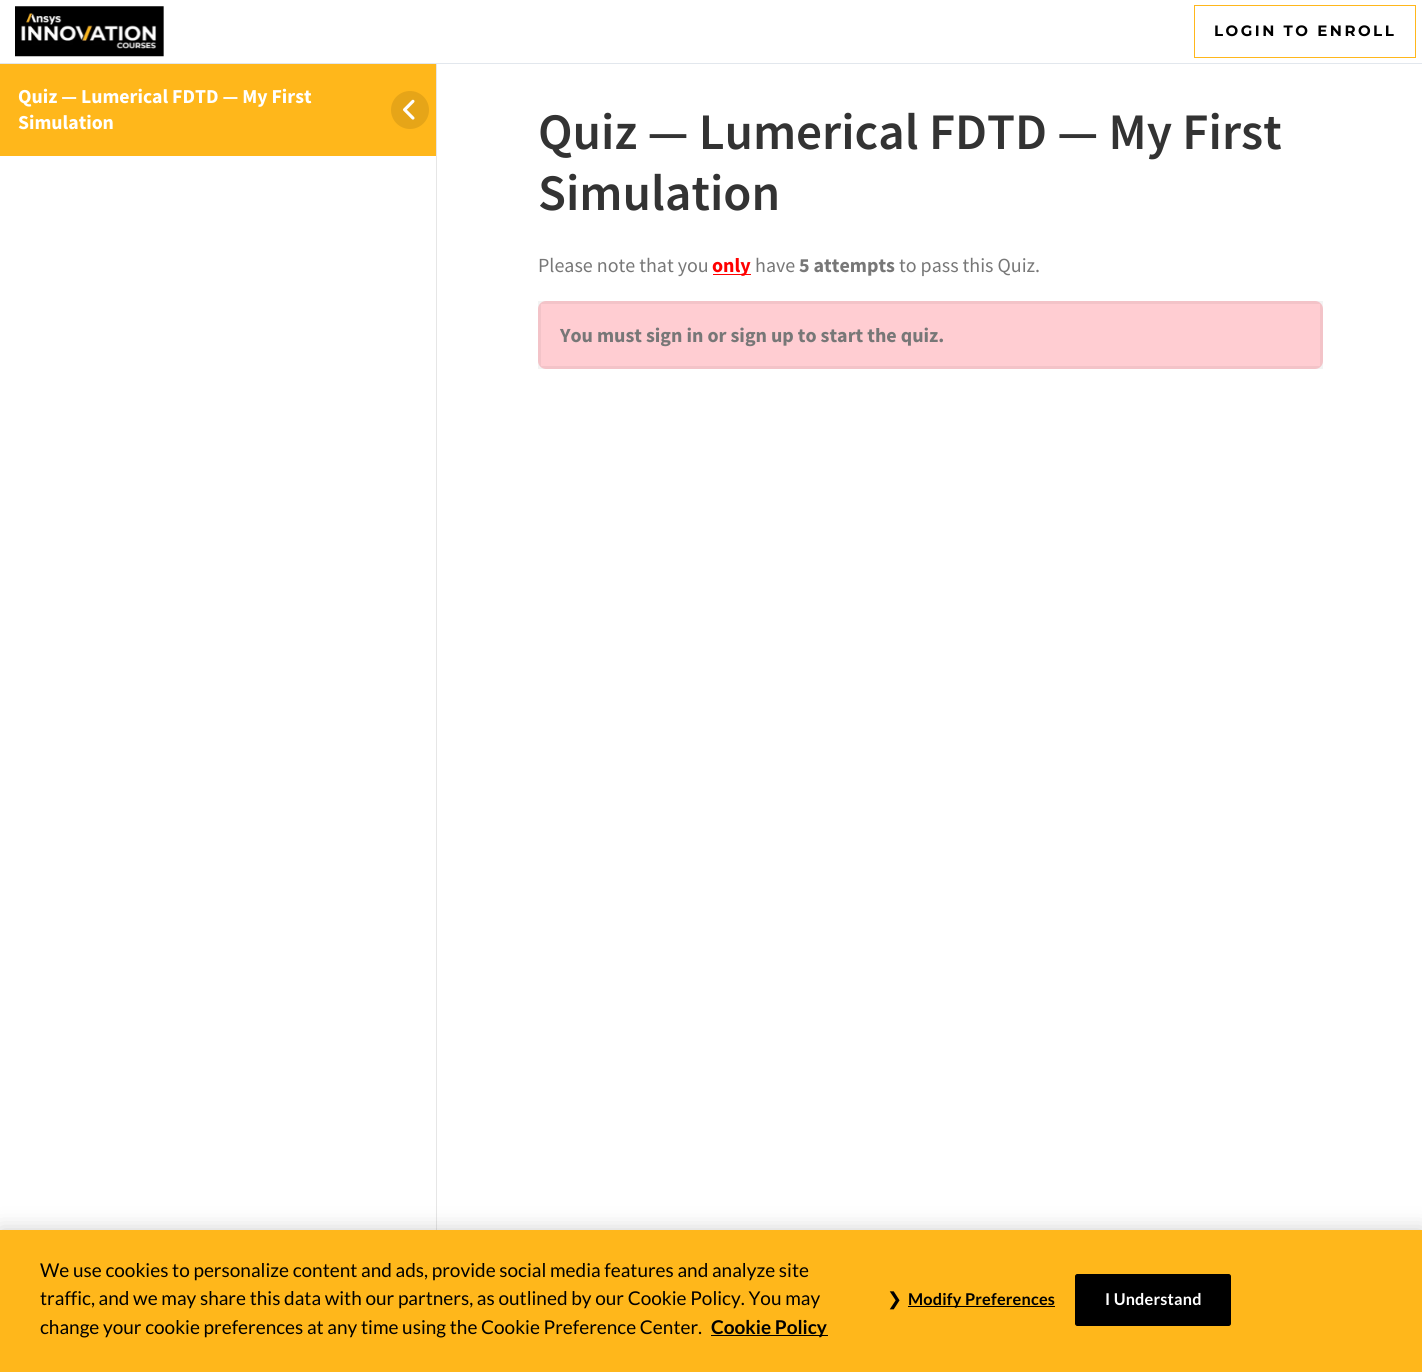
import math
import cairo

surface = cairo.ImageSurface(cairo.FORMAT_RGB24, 1422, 1372)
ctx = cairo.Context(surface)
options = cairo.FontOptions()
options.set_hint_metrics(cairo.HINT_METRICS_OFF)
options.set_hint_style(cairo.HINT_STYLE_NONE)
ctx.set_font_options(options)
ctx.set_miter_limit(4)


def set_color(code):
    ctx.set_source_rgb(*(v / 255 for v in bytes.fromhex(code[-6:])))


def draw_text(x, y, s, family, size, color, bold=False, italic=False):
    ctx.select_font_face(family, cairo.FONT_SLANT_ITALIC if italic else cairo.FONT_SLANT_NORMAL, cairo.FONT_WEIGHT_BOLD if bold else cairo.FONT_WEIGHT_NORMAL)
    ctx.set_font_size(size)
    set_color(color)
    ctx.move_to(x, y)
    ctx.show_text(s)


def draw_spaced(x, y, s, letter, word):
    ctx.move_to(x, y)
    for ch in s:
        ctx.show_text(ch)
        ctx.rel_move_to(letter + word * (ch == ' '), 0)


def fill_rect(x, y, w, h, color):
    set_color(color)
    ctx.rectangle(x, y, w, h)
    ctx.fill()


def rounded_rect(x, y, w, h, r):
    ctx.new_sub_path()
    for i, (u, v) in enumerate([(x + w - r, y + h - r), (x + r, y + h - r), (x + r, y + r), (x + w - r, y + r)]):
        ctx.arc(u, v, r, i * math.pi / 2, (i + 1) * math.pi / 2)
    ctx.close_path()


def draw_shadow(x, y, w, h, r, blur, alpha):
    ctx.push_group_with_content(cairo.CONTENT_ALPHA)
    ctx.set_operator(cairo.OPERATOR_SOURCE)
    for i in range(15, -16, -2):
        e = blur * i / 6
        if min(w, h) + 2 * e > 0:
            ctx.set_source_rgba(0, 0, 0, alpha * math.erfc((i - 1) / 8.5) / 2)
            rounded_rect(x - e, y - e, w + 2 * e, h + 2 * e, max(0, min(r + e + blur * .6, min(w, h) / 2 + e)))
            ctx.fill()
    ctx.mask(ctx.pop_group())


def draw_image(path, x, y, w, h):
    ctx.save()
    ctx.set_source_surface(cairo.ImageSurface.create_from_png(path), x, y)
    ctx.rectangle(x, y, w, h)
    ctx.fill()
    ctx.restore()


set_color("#ffffff")
ctx.paint()
fill_rect(436, 64, 1, 1166, "#e6e6e6")
fill_rect(0, 64, 436, 92, "#ffb71b")
draw_text(18, 103, "Quiz — Lumerical FDTD — My First", "Source Sans Pro", 19.75, "#ffffff", bold=True)
draw_text(18, 129, "Simulation", "Source Sans Pro", 19.75, "#ffffff", bold=True)
set_color("#e6a518")
ctx.new_path()
ctx.arc(410, 110, 19, 0, 2 * math.pi)
ctx.fill()
draw_image("assets/img1.png", 403, 99, 12, 21)
fill_rect(0, 63, 1422, 1, "#e2e7ed")
draw_image("assets/img2.png", 15, 6, 149, 51)
ctx.rectangle(1194.5, 5.5, 221, 52)
set_color("#ffb71b")
ctx.set_line_width(1)
ctx.stroke()
ctx.select_font_face("Montserrat", cairo.FONT_SLANT_NORMAL, cairo.FONT_WEIGHT_BOLD)
ctx.set_font_size(15)
set_color("#000000")
draw_spaced(1214, 36, "LOGIN TO ENROLL", 2.5, 0)
draw_text(538, 149, "Quiz — Lumerical FDTD — My First", "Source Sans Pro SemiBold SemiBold", 51.25, "#333333")
draw_text(538, 210, "Simulation", "Source Sans Pro SemiBold SemiBold", 51.25, "#333333")
draw_text(538, 272, "Please note that you", "Source Sans Pro", 20, "#777777")
fill_rect(713, 274, 38, 1, "#ff0000")
draw_text(712, 272, "only", "Source Sans Pro", 20, "#ff0000", bold=True)
draw_text(755, 272, "have", "Source Sans Pro", 20, "#777777")
draw_text(799, 272, "5 attempts", "Source Sans Pro", 20, "#777777", bold=True)
draw_text(899, 272, "to pass this Quiz.", "Source Sans Pro", 20, "#777777")
set_color("#ffcdd2")
rounded_rect(538, 301, 785, 68, 8)
ctx.fill()
ctx.rectangle(539.5, 302.5, 782, 65)
ctx.set_source_rgba(0, 0, 0, 0.05)
ctx.set_line_width(3)
ctx.stroke()
draw_text(560, 342, "You must sign in or sign up to start the quiz.", "Source Sans Pro", 20, "#777777", bold=True)
set_color("#000000")
draw_shadow(0, 1230, 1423, 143, 0, 11, 0.2)
fill_rect(0, 1230, 1422, 142, "#ffb71b")
draw_text(40, 1277, "We use cookies to personalize content and ads, provide social media features and analyze site", "Lato", 19, "#000000")
draw_text(40, 1305, "traffic, and we may share this data with our partners, as outlined by our Cookie Policy. You may", "Lato", 19, "#000000")
draw_text(40, 1334, "change your cookie preferences at any time using the Cookie Preference Center.", "Lato", 19, "#000000")
fill_rect(711, 1335, 117, 1, "#000000")
draw_text(711, 1334, "Cookie Policy", "Lato", 19, "#000000", bold=True)
ctx.select_font_face("DejaVu Sans")
ctx.set_font_size(18)
draw_spaced(887, 1305, "❯", 0.2, 0)
fill_rect(908, 1306, 147, 1, "#000000")
ctx.select_font_face("Lato", cairo.FONT_SLANT_NORMAL, cairo.FONT_WEIGHT_BOLD)
ctx.set_font_size(16.25)
draw_spaced(908, 1305, "Modify Preferences", 0.2, 0)
rounded_rect(1075.5, 1274.5, 155, 51, 2)
ctx.fill_preserve()
ctx.set_line_width(1)
ctx.stroke()
set_color("#ffffff")
draw_spaced(1105, 1305, "I Understand", 0.2, 0)
surface.write_to_png("output.png")
